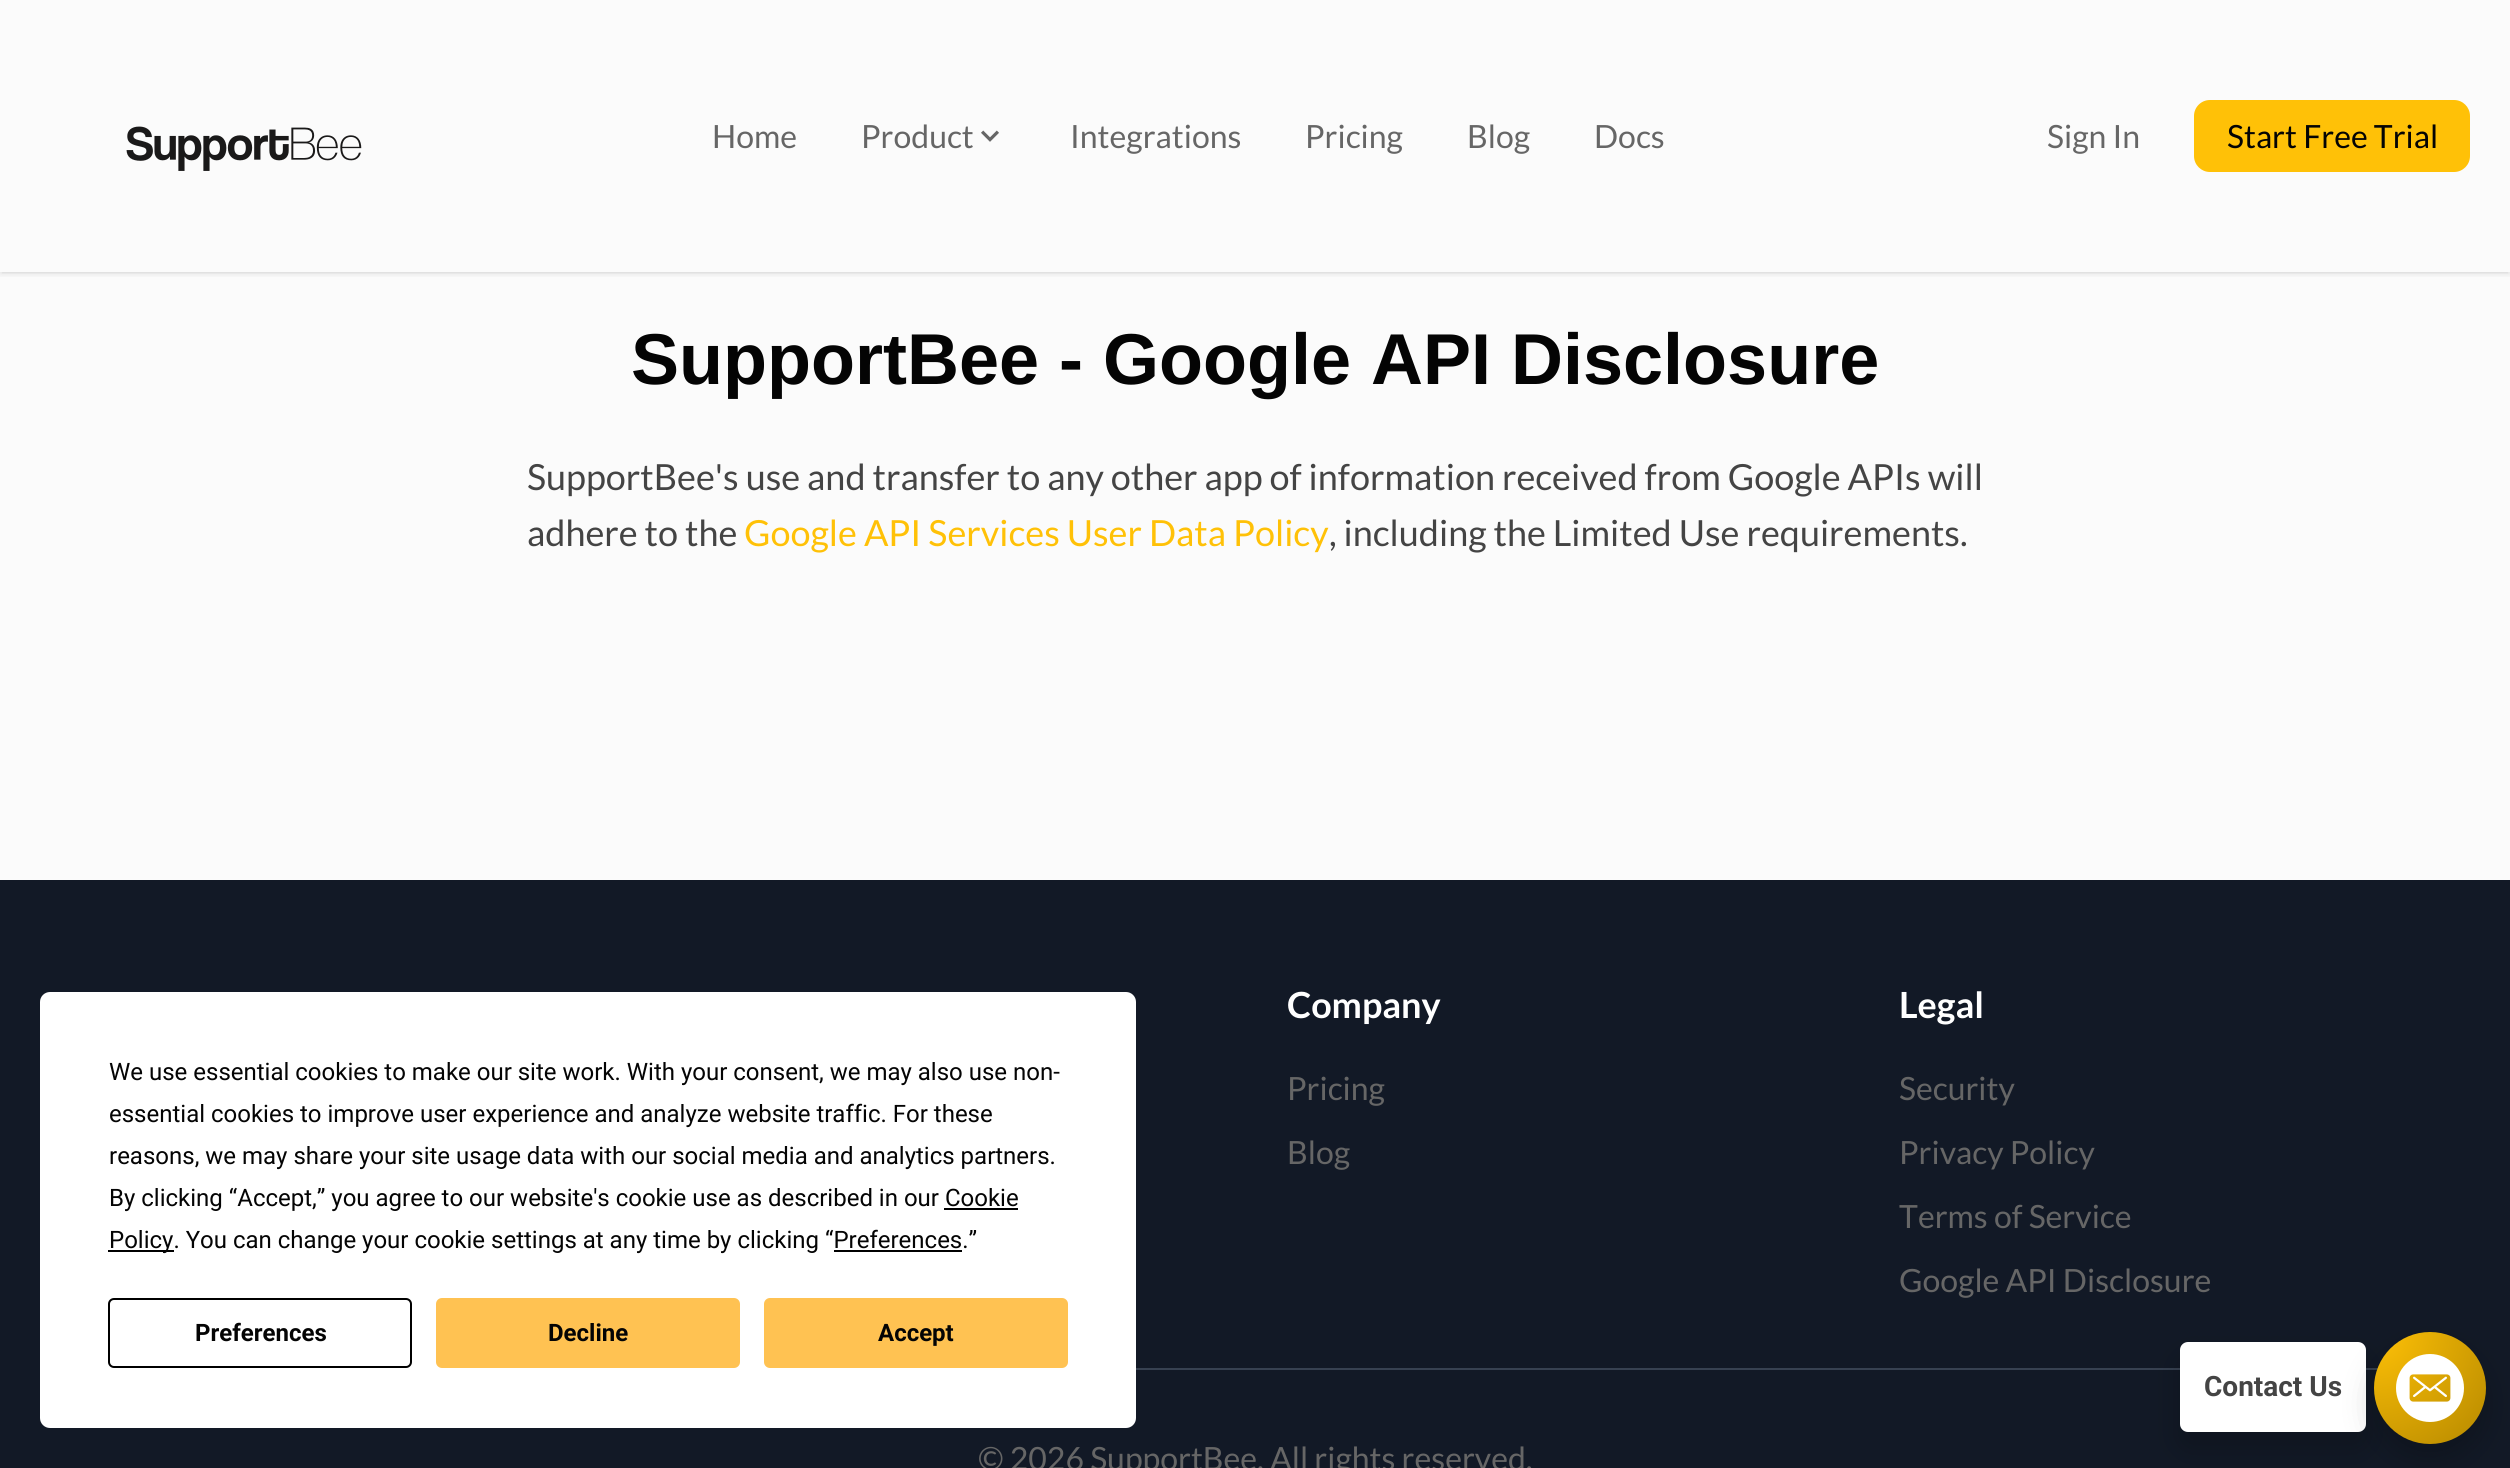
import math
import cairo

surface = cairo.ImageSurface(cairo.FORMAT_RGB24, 2510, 1468)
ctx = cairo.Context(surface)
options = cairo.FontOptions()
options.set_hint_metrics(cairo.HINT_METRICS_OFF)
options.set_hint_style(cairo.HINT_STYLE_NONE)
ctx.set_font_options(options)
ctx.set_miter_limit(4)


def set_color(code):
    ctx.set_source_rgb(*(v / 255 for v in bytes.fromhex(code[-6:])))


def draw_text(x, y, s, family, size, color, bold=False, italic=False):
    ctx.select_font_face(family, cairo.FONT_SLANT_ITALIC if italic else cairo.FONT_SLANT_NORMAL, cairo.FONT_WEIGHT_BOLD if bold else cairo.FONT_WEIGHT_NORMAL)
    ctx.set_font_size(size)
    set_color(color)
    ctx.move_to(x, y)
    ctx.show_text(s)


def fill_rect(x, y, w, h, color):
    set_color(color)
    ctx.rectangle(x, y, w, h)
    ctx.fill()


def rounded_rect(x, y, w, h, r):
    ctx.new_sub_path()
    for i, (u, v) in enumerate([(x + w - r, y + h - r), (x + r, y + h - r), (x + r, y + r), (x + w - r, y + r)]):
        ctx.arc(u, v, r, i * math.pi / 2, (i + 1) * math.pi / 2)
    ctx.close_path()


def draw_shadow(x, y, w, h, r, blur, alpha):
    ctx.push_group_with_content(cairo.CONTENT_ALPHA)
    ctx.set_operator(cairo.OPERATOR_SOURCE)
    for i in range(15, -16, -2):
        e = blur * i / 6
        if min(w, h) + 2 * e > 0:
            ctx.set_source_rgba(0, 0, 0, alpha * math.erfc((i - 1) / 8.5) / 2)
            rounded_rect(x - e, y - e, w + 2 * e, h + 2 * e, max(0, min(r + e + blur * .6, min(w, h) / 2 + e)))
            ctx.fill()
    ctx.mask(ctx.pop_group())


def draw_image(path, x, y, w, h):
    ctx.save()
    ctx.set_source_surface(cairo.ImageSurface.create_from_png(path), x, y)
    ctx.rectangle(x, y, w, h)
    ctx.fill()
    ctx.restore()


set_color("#fbfbfb")
ctx.paint()
ctx.save()
ctx.rectangle(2, 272, 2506, 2)
ctx.clip()
set_color("#000000")
draw_shadow(2, 4, 2506, 268, 0, 2, 0.1)
ctx.restore()
ctx.save()
ctx.rectangle(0, 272, 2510, 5)
ctx.clip()
set_color("#000000")
draw_shadow(0, 2, 2510, 272, 0, 3, 0.1)
ctx.restore()
draw_image("assets/img1.png", 126, 126, 236, 45)
draw_text(712, 148, "Home", "Lato", 32, "#666666")
draw_text(861, 148, "Product", "Lato", 32, "#666666")
draw_image("assets/img2.png", 981, 130, 18, 12)
draw_text(1070, 148, "Integrations", "Lato", 32, "#666666")
draw_text(1305, 148, "Pricing", "Lato", 32, "#666666")
draw_text(1467, 148, "Blog", "Lato", 32, "#666666")
draw_text(1594, 148, "Docs", "Lato", 32, "#666666")
draw_text(2047, 148, "Sign In", "Lato", 32, "#666666")
set_color("#ffc107")
rounded_rect(2194, 100, 276, 72, 16)
ctx.fill()
draw_text(2227, 148, "Start Free Trial", "Lato", 32, "#040404")
draw_text(631, 384, "SupportBee - Google API Disclosure", "Liberation Sans", 72, "#040404", bold=True)
draw_text(527, 490, "SupportBee's use and transfer to any other app of information received from Google APIs will", "Lato", 36, "#444444")
draw_text(527, 546, "adhere to the", "Lato", 36, "#444444")
draw_text(744, 546, "Google API Services User Data Policy", "Lato", 36, "#ffc107")
draw_text(1329, 546, ", including the Limited Use requirements.", "Lato", 36, "#444444")
fill_rect(0, 880, 2510, 588, "#121926")
set_color("#ffffff")
rounded_rect(40, 992, 1096, 436, 10)
ctx.fill()
draw_text(109, 1080, "We use essential cookies to make our site work. With your consent, we may also use non-", "Roboto", 24, "#040404")
draw_text(109, 1122, "essential cookies to improve user experience and analyze website traffic. For these", "Roboto", 24, "#040404")
draw_text(109, 1164, "reasons, we may share your site usage data with our social media and analytics partners.", "Roboto", 24, "#040404")
draw_text(109, 1206, "By clicking “Accept,” you agree to our website's cookie use as described in our Cookie", "Roboto", 24, "#040404")
fill_rect(108, 1250, 66, 2, "#000000")
draw_text(109, 1248, "Policy. You can change your cookie settings at any time by clicking “Preferences.”", "Roboto", 24, "#040404")
fill_rect(944, 1208, 74, 2, "#000000")
fill_rect(834, 1250, 128, 2, "#000000")
rounded_rect(109, 1299, 302, 68, 5)
ctx.stroke()
draw_text(195, 1341, "Preferences", "Roboto", 24, "#040404", bold=True)
set_color("#ffc252")
rounded_rect(437, 1299, 302, 68, 5)
ctx.fill_preserve()
ctx.stroke()
draw_text(548, 1341, "Decline", "Roboto", 24, "#040404", bold=True)
set_color("#ffc252")
rounded_rect(765, 1299, 302, 68, 5)
ctx.fill_preserve()
ctx.stroke()
draw_text(878, 1341, "Accept", "Roboto", 24, "#040404", bold=True)
draw_text(1287, 1018, "Company", "Lato", 36, "#ffffff", bold=True)
draw_text(1287, 1100, "Pricing", "Lato", 32, "#666666")
draw_text(1287, 1164, "Blog", "Lato", 32, "#666666")
draw_text(1899, 1018, "Legal", "Lato", 36, "#ffffff", bold=True)
draw_text(1899, 1100, "Security", "Lato", 32, "#666666")
draw_text(1899, 1164, "Privacy Policy", "Lato", 32, "#666666")
draw_text(1899, 1228, "Terms of Service", "Lato", 32, "#666666")
draw_text(1899, 1292, "Google API Disclosure", "Lato", 32, "#666666")
fill_rect(1136, 1368, 1242, 2, "#374151")
draw_text(978, 1470, "© 2026 SupportBee. All rights reserved.", "Lato", 32, "#666666")
set_color("#000000")
draw_shadow(2180, 1358, 186, 90, 8, 15, 0.2)
set_color("#ffffff")
rounded_rect(2180, 1342, 186, 90, 8)
ctx.fill()
draw_text(2204, 1396, "Contact Us", "Roboto", 28, "#444444", bold=True)
set_color("#000000")
draw_shadow(2374, 1348, 112, 112, 56, 15, 0.2)
gradient = cairo.RadialGradient(2374, 1332, 0, 2374, 1332, 158)
gradient.add_color_stop_rgba(0, 1, 0.757, 0.027, 1)
gradient.add_color_stop_rgba(1, 0.718, 0.541, 0, 1)
ctx.set_source(gradient)
ctx.arc(2430, 1388, 56, 0, 2 * math.pi)
ctx.fill()
draw_image("assets/img3.png", 2396, 1354, 68, 68)
surface.write_to_png("output.png")
